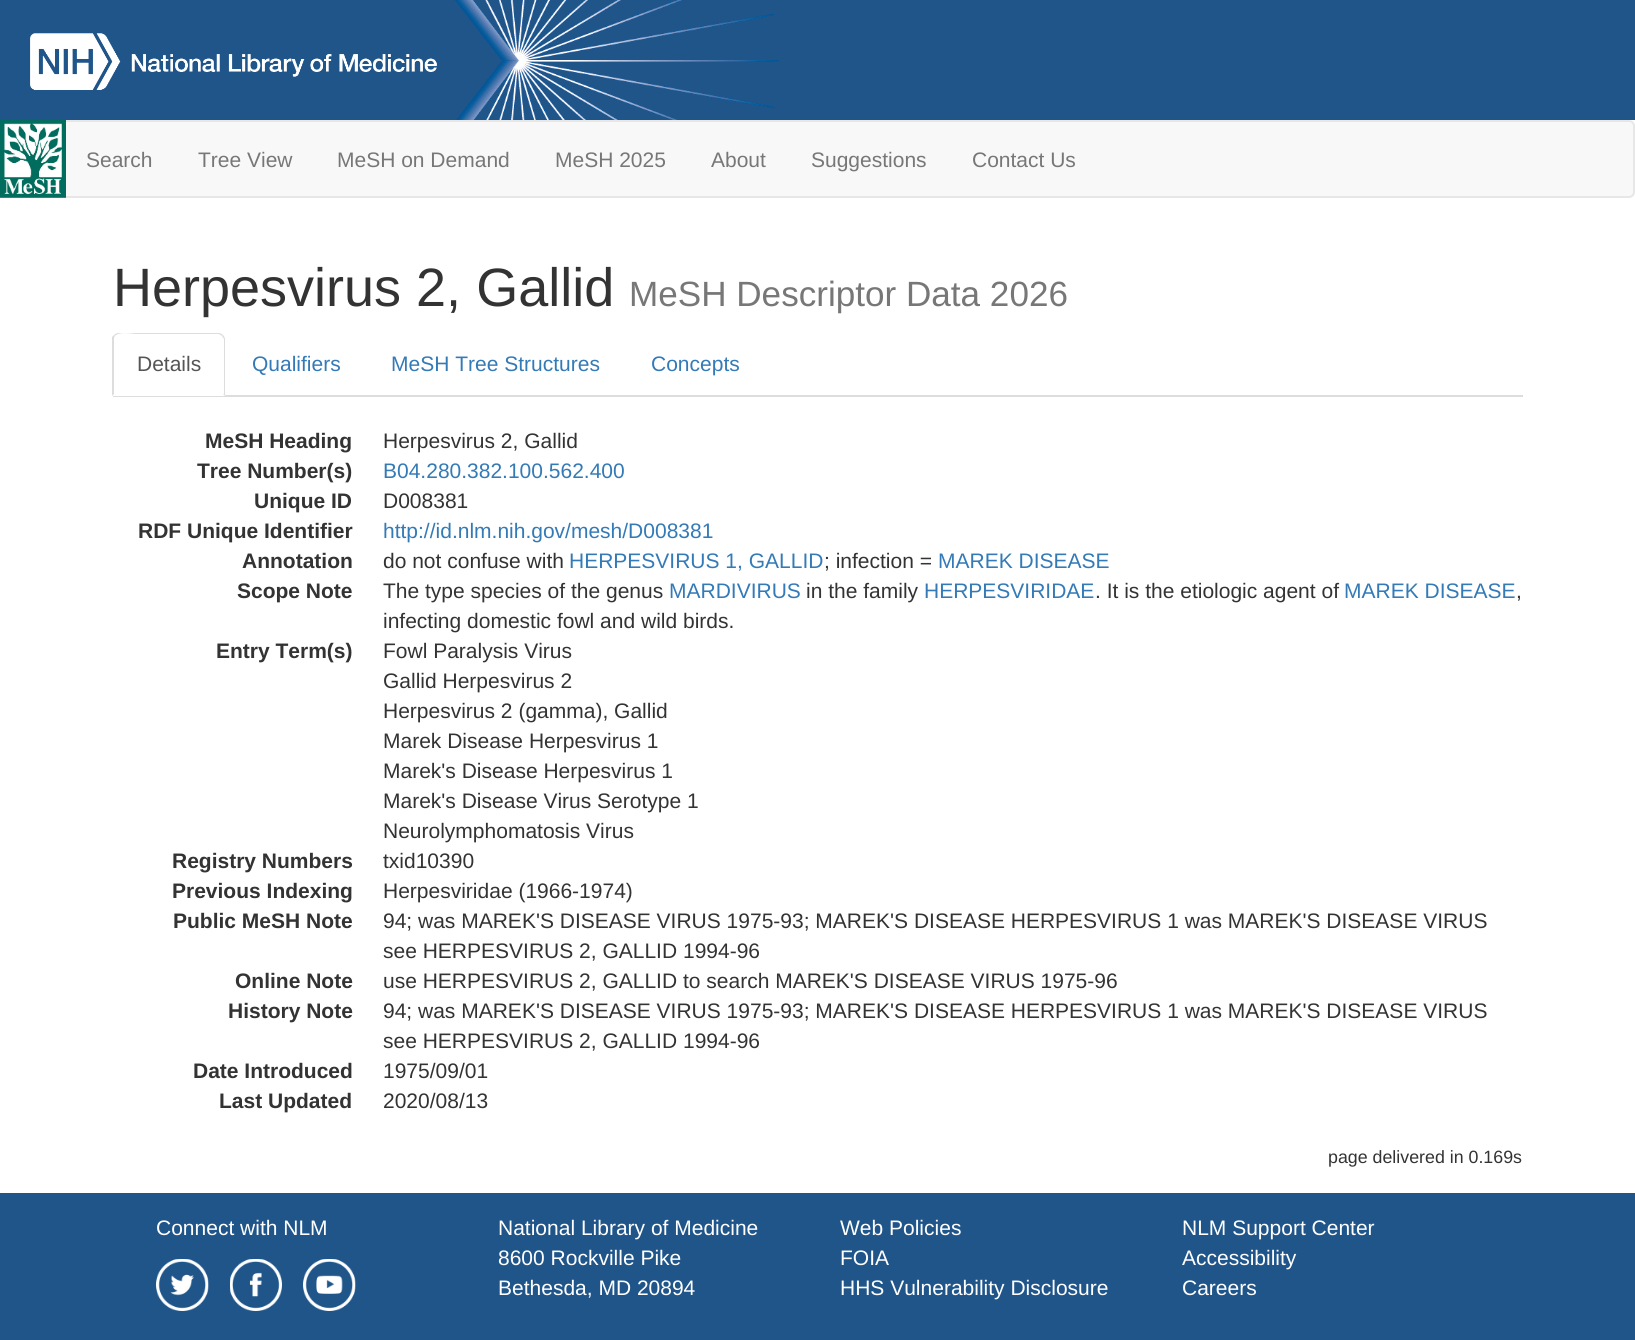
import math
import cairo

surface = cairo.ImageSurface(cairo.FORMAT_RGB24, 1635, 1340)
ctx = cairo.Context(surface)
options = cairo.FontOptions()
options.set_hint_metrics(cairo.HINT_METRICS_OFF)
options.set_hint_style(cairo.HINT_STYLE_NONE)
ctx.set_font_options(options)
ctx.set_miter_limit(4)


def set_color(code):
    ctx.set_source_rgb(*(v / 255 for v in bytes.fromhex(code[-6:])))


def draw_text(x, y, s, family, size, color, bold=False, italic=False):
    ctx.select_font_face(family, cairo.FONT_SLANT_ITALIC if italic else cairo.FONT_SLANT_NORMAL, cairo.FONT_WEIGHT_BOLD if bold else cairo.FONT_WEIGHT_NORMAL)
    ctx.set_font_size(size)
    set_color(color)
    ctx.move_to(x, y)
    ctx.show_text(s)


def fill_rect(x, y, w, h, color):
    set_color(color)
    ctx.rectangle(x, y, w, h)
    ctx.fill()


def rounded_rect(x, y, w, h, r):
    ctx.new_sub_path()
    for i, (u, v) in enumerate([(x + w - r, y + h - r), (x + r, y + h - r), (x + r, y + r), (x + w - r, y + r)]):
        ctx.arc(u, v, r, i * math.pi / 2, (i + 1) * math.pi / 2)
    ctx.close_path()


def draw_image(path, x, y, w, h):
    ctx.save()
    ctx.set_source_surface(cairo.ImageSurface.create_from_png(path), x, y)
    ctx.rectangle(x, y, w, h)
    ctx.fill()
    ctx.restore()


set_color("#ffffff")
ctx.paint()
fill_rect(0, 0, 1635, 120, "#20558a")
draw_image("assets/img1.png", 455, 0, 324, 120)
draw_image("assets/img2.png", 30, 33, 407, 57)
set_color("#f8f8f8")
rounded_rect(1, 121, 1633, 76, 5)
ctx.fill_preserve()
set_color("#e7e7e7")
ctx.stroke()
draw_image("assets/img3.png", 0, 120, 66, 78)
draw_text(86, 167, "Search", "Liberation Sans", 21, "#777777")
draw_text(198, 167, "Tree View", "Liberation Sans", 21, "#777777")
draw_text(337, 167, "MeSH on Demand", "Liberation Sans", 21, "#777777")
draw_text(555, 167, "MeSH 2025", "Liberation Sans", 21, "#777777")
draw_text(711, 167, "About", "Liberation Sans", 21, "#777777")
draw_text(811, 167, "Suggestions", "Liberation Sans", 21, "#777777")
draw_text(972, 167, "Contact Us", "Liberation Sans", 21, "#777777")
draw_text(113, 306, "Herpesvirus 2, Gallid", "Liberation Sans", 54, "#333333")
draw_text(629, 306, "MeSH Descriptor Data 2026", "Liberation Sans", 35.1, "#777777")
fill_rect(113, 395, 1410, 2, "#dddddd")
set_color("#ffffff")
ctx.new_path()
ctx.move_to(119, 333)
ctx.line_to(219, 333)
ctx.curve_to(222.5, 333, 225, 335.5, 225, 339)
ctx.line_to(225, 396)
ctx.line_to(113, 396)
ctx.line_to(113, 339)
ctx.curve_to(113, 335.5, 115.5, 333, 119, 333)
ctx.close_path()
ctx.fill()
set_color("#dddddd")
ctx.new_path()
ctx.move_to(118, 333)
ctx.curve_to(117, 333, 115, 334, 114, 335)
ctx.line_to(115, 336)
ctx.curve_to(119, 331, 134, 334, 135, 334)
ctx.line_to(219, 334)
ctx.line_to(222, 336)
ctx.line_to(223, 335)
ctx.curve_to(222, 334, 220, 333, 219, 333)
ctx.close_path()
ctx.fill()
ctx.new_path()
ctx.move_to(225, 396)
ctx.line_to(225, 339)
ctx.curve_to(225, 338, 224, 336, 223, 335)
ctx.line_to(222, 336)
ctx.line_to(224, 339)
ctx.line_to(224, 394)
ctx.line_to(223, 394)
ctx.close_path()
ctx.fill()
ctx.new_path()
ctx.move_to(112, 396)
ctx.line_to(112, 337)
ctx.line_to(114, 335)
ctx.line_to(115, 336)
ctx.curve_to(114, 337, 114, 338, 114, 339)
ctx.line_to(114, 394)
ctx.close_path()
ctx.fill()
draw_text(137, 371, "Details", "Liberation Sans", 21, "#555555")
draw_text(252, 371, "Qualifiers", "Liberation Sans", 21, "#337ab7")
draw_text(391, 371, "MeSH Tree Structures", "Liberation Sans", 21, "#337ab7")
draw_text(651, 371, "Concepts", "Liberation Sans", 21, "#337ab7")
draw_text(205, 448, "MeSH Heading", "Liberation Sans", 21, "#333333", bold=True)
draw_text(383, 448, "Herpesvirus 2, Gallid", "Liberation Sans", 21, "#333333")
draw_text(197, 478, "Tree Number(s)", "Liberation Sans", 21, "#333333", bold=True)
draw_text(383, 478, "B04.280.382.100.562.400", "Liberation Sans", 21, "#337ab7")
draw_text(254, 508, "Unique ID", "Liberation Sans", 21, "#333333", bold=True)
draw_text(383, 508, "D008381", "Liberation Sans", 21, "#333333")
draw_text(138, 538, "RDF Unique Identifier", "Liberation Sans", 21, "#333333", bold=True)
draw_text(383, 538, "http://id.nlm.nih.gov/mesh/D008381", "Liberation Sans", 21, "#337ab7")
draw_text(242, 568, "Annotation", "Liberation Sans", 21, "#333333", bold=True)
draw_text(383, 568, "do not confuse with", "Liberation Sans", 21, "#333333")
draw_text(569, 568, "HERPESVIRUS 1, GALLID", "Liberation Sans", 21, "#337ab7")
draw_text(824, 568, "; infection =", "Liberation Sans", 21, "#333333")
draw_text(938, 568, "MAREK DISEASE", "Liberation Sans", 21, "#337ab7")
draw_text(237, 598, "Scope Note", "Liberation Sans", 21, "#333333", bold=True)
draw_text(383, 598, "The type species of the genus", "Liberation Sans", 21, "#333333")
draw_text(669, 598, "MARDIVIRUS", "Liberation Sans", 21, "#337ab7")
draw_text(806, 598, "in the family", "Liberation Sans", 21, "#333333")
draw_text(924, 598, "HERPESVIRIDAE", "Liberation Sans", 21, "#337ab7")
draw_text(1095, 598, ". It is the etiologic agent of", "Liberation Sans", 21, "#333333")
draw_text(1344, 598, "MAREK DISEASE", "Liberation Sans", 21, "#337ab7")
draw_text(1516, 598, ",", "Liberation Sans", 21, "#333333")
draw_text(383, 628, "infecting domestic fowl and wild birds.", "Liberation Sans", 21, "#333333")
draw_text(216, 658, "Entry Term(s)", "Liberation Sans", 21, "#333333", bold=True)
draw_text(383, 658, "Fowl Paralysis Virus", "Liberation Sans", 21, "#333333")
draw_text(383, 688, "Gallid Herpesvirus 2", "Liberation Sans", 21, "#333333")
draw_text(383, 718, "Herpesvirus 2 (gamma), Gallid", "Liberation Sans", 21, "#333333")
draw_text(383, 748, "Marek Disease Herpesvirus 1", "Liberation Sans", 21, "#333333")
draw_text(383, 778, "Marek's Disease Herpesvirus 1", "Liberation Sans", 21, "#333333")
draw_text(383, 808, "Marek's Disease Virus Serotype 1", "Liberation Sans", 21, "#333333")
draw_text(383, 838, "Neurolymphomatosis Virus", "Liberation Sans", 21, "#333333")
draw_text(172, 868, "Registry Numbers", "Liberation Sans", 21, "#333333", bold=True)
draw_text(383, 868, "txid10390", "Liberation Sans", 21, "#333333")
draw_text(172, 898, "Previous Indexing", "Liberation Sans", 21, "#333333", bold=True)
draw_text(383, 898, "Herpesviridae (1966-1974)", "Liberation Sans", 21, "#333333")
draw_text(173, 928, "Public MeSH Note", "Liberation Sans", 21, "#333333", bold=True)
draw_text(383, 928, "94; was MAREK'S DISEASE VIRUS 1975-93; MAREK'S DISEASE HERPESVIRUS 1 was MAREK'S DISEASE VIRUS", "Liberation Sans", 21, "#333333")
draw_text(383, 958, "see HERPESVIRUS 2, GALLID 1994-96", "Liberation Sans", 21, "#333333")
draw_text(235, 988, "Online Note", "Liberation Sans", 21, "#333333", bold=True)
draw_text(383, 988, "use HERPESVIRUS 2, GALLID to search MAREK'S DISEASE VIRUS 1975-96", "Liberation Sans", 21, "#333333")
draw_text(228, 1018, "History Note", "Liberation Sans", 21, "#333333", bold=True)
draw_text(383, 1018, "94; was MAREK'S DISEASE VIRUS 1975-93; MAREK'S DISEASE HERPESVIRUS 1 was MAREK'S DISEASE VIRUS", "Liberation Sans", 21, "#333333")
draw_text(383, 1048, "see HERPESVIRUS 2, GALLID 1994-96", "Liberation Sans", 21, "#333333")
draw_text(193, 1078, "Date Introduced", "Liberation Sans", 21, "#333333", bold=True)
draw_text(383, 1078, "1975/09/01", "Liberation Sans", 21, "#333333")
draw_text(219, 1108, "Last Updated", "Liberation Sans", 21, "#333333", bold=True)
draw_text(383, 1108, "2020/08/13", "Liberation Sans", 21, "#333333")
draw_text(1328, 1163, "page delivered in 0.169s", "Liberation Sans", 17.8, "#333333")
fill_rect(0, 1193, 1635, 147, "#20558a")
draw_text(156, 1235, "Connect with NLM", "Liberation Sans", 21, "#ffffff")
draw_image("assets/img4.png", 156, 1259, 53, 52)
draw_image("assets/img5.png", 230, 1259, 52, 52)
draw_image("assets/img6.png", 303, 1259, 53, 52)
draw_text(498, 1235, "National Library of Medicine", "Liberation Sans", 21, "#ffffff")
draw_text(498, 1265, "8600 Rockville Pike", "Liberation Sans", 21, "#ffffff")
draw_text(498, 1295, "Bethesda, MD 20894", "Liberation Sans", 21, "#ffffff")
draw_text(840, 1235, "Web Policies", "Liberation Sans", 21, "#ffffff")
draw_text(840, 1265, "FOIA", "Liberation Sans", 21, "#ffffff")
draw_text(840, 1295, "HHS Vulnerability Disclosure", "Liberation Sans", 21, "#ffffff")
draw_text(1182, 1235, "NLM Support Center", "Liberation Sans", 21, "#ffffff")
draw_text(1182, 1265, "Accessibility", "Liberation Sans", 21, "#ffffff")
draw_text(1182, 1295, "Careers", "Liberation Sans", 21, "#ffffff")
surface.write_to_png("output.png")
